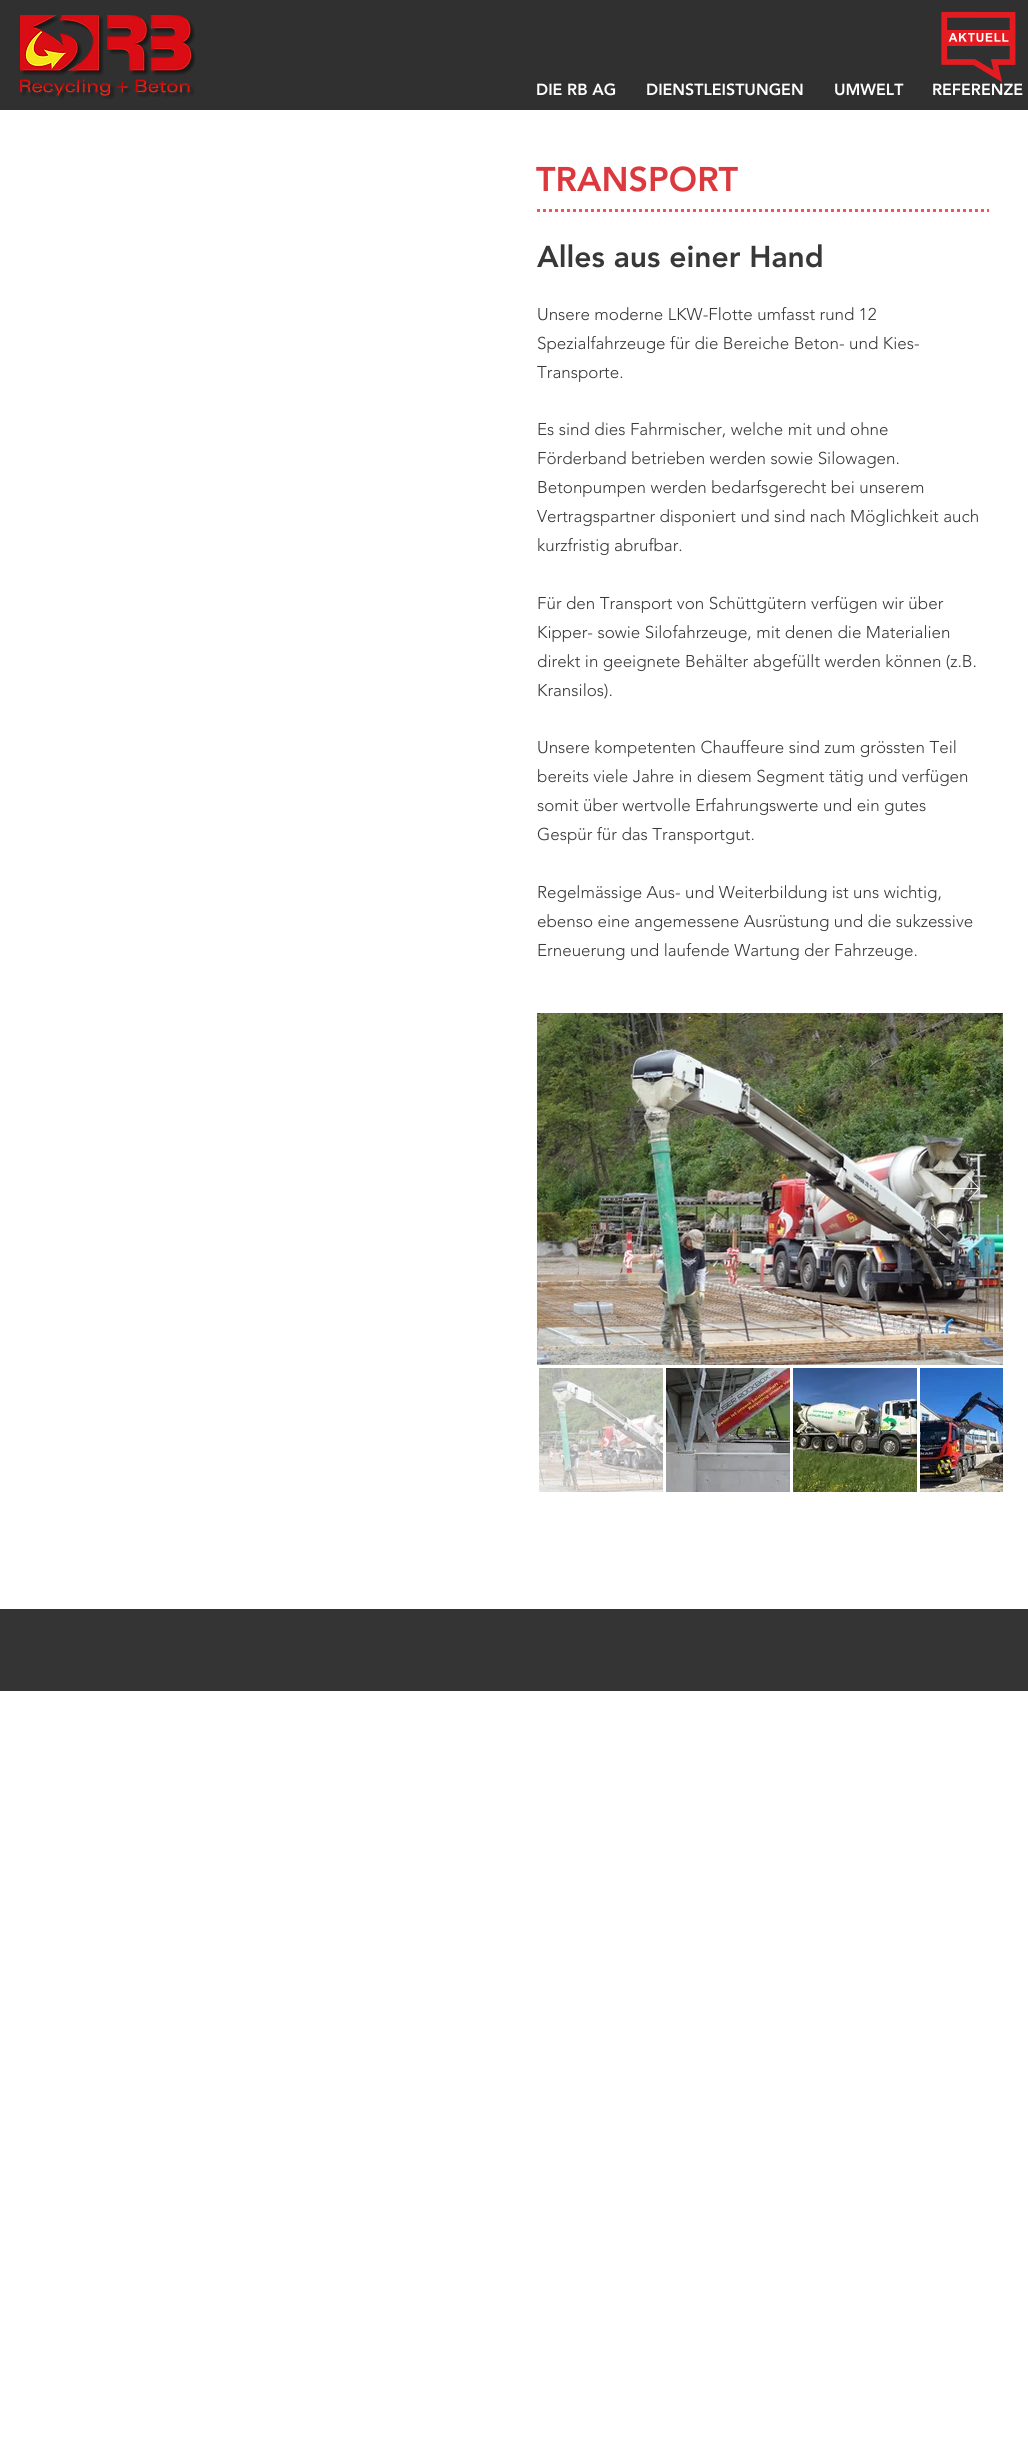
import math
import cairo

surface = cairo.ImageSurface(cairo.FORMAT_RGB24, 1028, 2442)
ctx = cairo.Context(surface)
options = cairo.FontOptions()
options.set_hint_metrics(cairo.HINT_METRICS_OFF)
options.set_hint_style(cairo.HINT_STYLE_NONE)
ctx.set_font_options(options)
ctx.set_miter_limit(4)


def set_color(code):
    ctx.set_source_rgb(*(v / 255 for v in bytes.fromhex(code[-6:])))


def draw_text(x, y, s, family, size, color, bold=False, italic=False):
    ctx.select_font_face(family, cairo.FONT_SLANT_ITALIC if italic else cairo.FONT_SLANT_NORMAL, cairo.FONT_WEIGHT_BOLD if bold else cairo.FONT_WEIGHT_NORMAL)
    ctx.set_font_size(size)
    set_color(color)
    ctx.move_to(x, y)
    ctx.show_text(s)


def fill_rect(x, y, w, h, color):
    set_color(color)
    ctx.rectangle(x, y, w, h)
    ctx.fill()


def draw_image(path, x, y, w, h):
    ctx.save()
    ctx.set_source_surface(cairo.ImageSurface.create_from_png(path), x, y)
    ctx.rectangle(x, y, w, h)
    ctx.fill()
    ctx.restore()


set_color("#ffffff")
ctx.paint()
fill_rect(0, 0, 1028, 110, "#313030")
draw_image("assets/img1.png", 20, 15, 175, 84)
draw_image("assets/img2.png", 941, 11, 75, 71)
draw_text(536, 95, "DIE RB AG", "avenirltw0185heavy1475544 Black", 16, "#ffffff")
draw_text(646, 95, "DIENSTLEISTUNGEN", "avenirltw0185heavy1475544 Black", 16, "#ffffff")
draw_text(834, 95, "UMWELT", "avenirltw0185heavy1475544 Black", 16, "#ffffff")
draw_text(932, 95, "REFERENZE", "avenirltw0185heavy1475544 Black", 16, "#ffffff")
draw_text(536, 191, "TRANSPORT", "avenirltw0185heavy1475544 Black", 34, "#db393e")
ctx.new_path()
ctx.move_to(537, 210.5)
ctx.line_to(989, 210.5)
set_color("#ff4f4f")
ctx.set_line_width(3)
ctx.set_dash([3, 3])
ctx.stroke()
draw_text(537, 267, "Alles aus einer Hand", "avenirltw0185heavy1475544 Black", 30, "#383838")
draw_text(537, 320, "Unsere moderne LKW-Flotte umfasst rund 12", "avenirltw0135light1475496 Light", 17, "#383838")
draw_text(537, 349, "Spezialfahrzeuge für die Bereiche Beton- und Kies-", "avenirltw0135light1475496 Light", 17, "#383838")
draw_text(537, 378, "Transporte.", "avenirltw0135light1475496 Light", 17, "#383838")
draw_text(537, 435, "Es sind dies Fahrmischer, welche mit und ohne", "avenirltw0135light1475496 Light", 17, "#383838")
draw_text(537, 464, "Förderband betrieben werden sowie Silowagen.", "avenirltw0135light1475496 Light", 17, "#383838")
draw_text(537, 493, "Betonpumpen werden bedarfsgerecht bei unserem", "avenirltw0135light1475496 Light", 17, "#383838")
draw_text(537, 522, "Vertragspartner disponiert und sind nach Möglichkeit auch", "avenirltw0135light1475496 Light", 17, "#383838")
draw_text(537, 551, "kurzfristig abrufbar.", "avenirltw0135light1475496 Light", 17, "#383838")
draw_text(537, 609, "Für den Transport von Schüttgütern verfügen wir über", "avenirltw0135light1475496 Light", 17, "#383838")
draw_text(537, 638, "Kipper- sowie Silofahrzeuge, mit denen die Materialien", "avenirltw0135light1475496 Light", 17, "#383838")
draw_text(537, 667, "direkt in geeignete Behälter abgefüllt werden können (z.B.", "avenirltw0135light1475496 Light", 17, "#383838")
draw_text(537, 696, "Kransilos).", "avenirltw0135light1475496 Light", 17, "#383838")
draw_text(537, 753, "Unsere kompetenten Chauffeure sind zum grössten Teil", "avenirltw0135light1475496 Light", 17, "#383838")
draw_text(537, 782, "bereits viele Jahre in diesem Segment tätig und verfügen", "avenirltw0135light1475496 Light", 17, "#383838")
draw_text(537, 811, "somit über wertvolle Erfahrungswerte und ein gutes", "avenirltw0135light1475496 Light", 17, "#383838")
draw_text(537, 840, "Gespür für das Transportgut.", "avenirltw0135light1475496 Light", 17, "#383838")
draw_text(537, 898, "Regelmässige Aus- und Weiterbildung ist uns wichtig,", "avenirltw0135light1475496 Light", 17, "#383838")
draw_text(537, 927, "ebenso eine angemessene Ausrüstung und die sukzessive", "avenirltw0135light1475496 Light", 17, "#383838")
draw_text(537, 956, "Erneuerung und laufende Wartung der Fahrzeuge.", "avenirltw0135light1475496 Light", 17, "#383838")
draw_image("assets/img3.png", 537, 1013, 466, 352)
ctx.set_source_rgba(1, 1, 1, 0.9)
ctx.set_fill_rule(cairo.FILL_RULE_EVEN_ODD)
ctx.new_path()
ctx.move_to(968, 1201.5)
ctx.line_to(967.5, 1200.5)
ctx.line_to(978, 1189)
ctx.line_to(949.5, 1189)
ctx.line_to(949.5, 1188)
ctx.line_to(978, 1188)
ctx.line_to(967.5, 1176.5)
ctx.line_to(968, 1176)
ctx.line_to(980, 1188.5)
ctx.close_path()
ctx.fill()
draw_image("assets/img4.png", 539, 1368, 124, 124)
draw_image("assets/img5.png", 666, 1368, 124, 124)
draw_image("assets/img6.png", 793, 1368, 124, 124)
draw_image("assets/img7.png", 920, 1368, 83, 124)
fill_rect(0, 1609, 1028, 82, "#353434")
surface.write_to_png("output.png")
